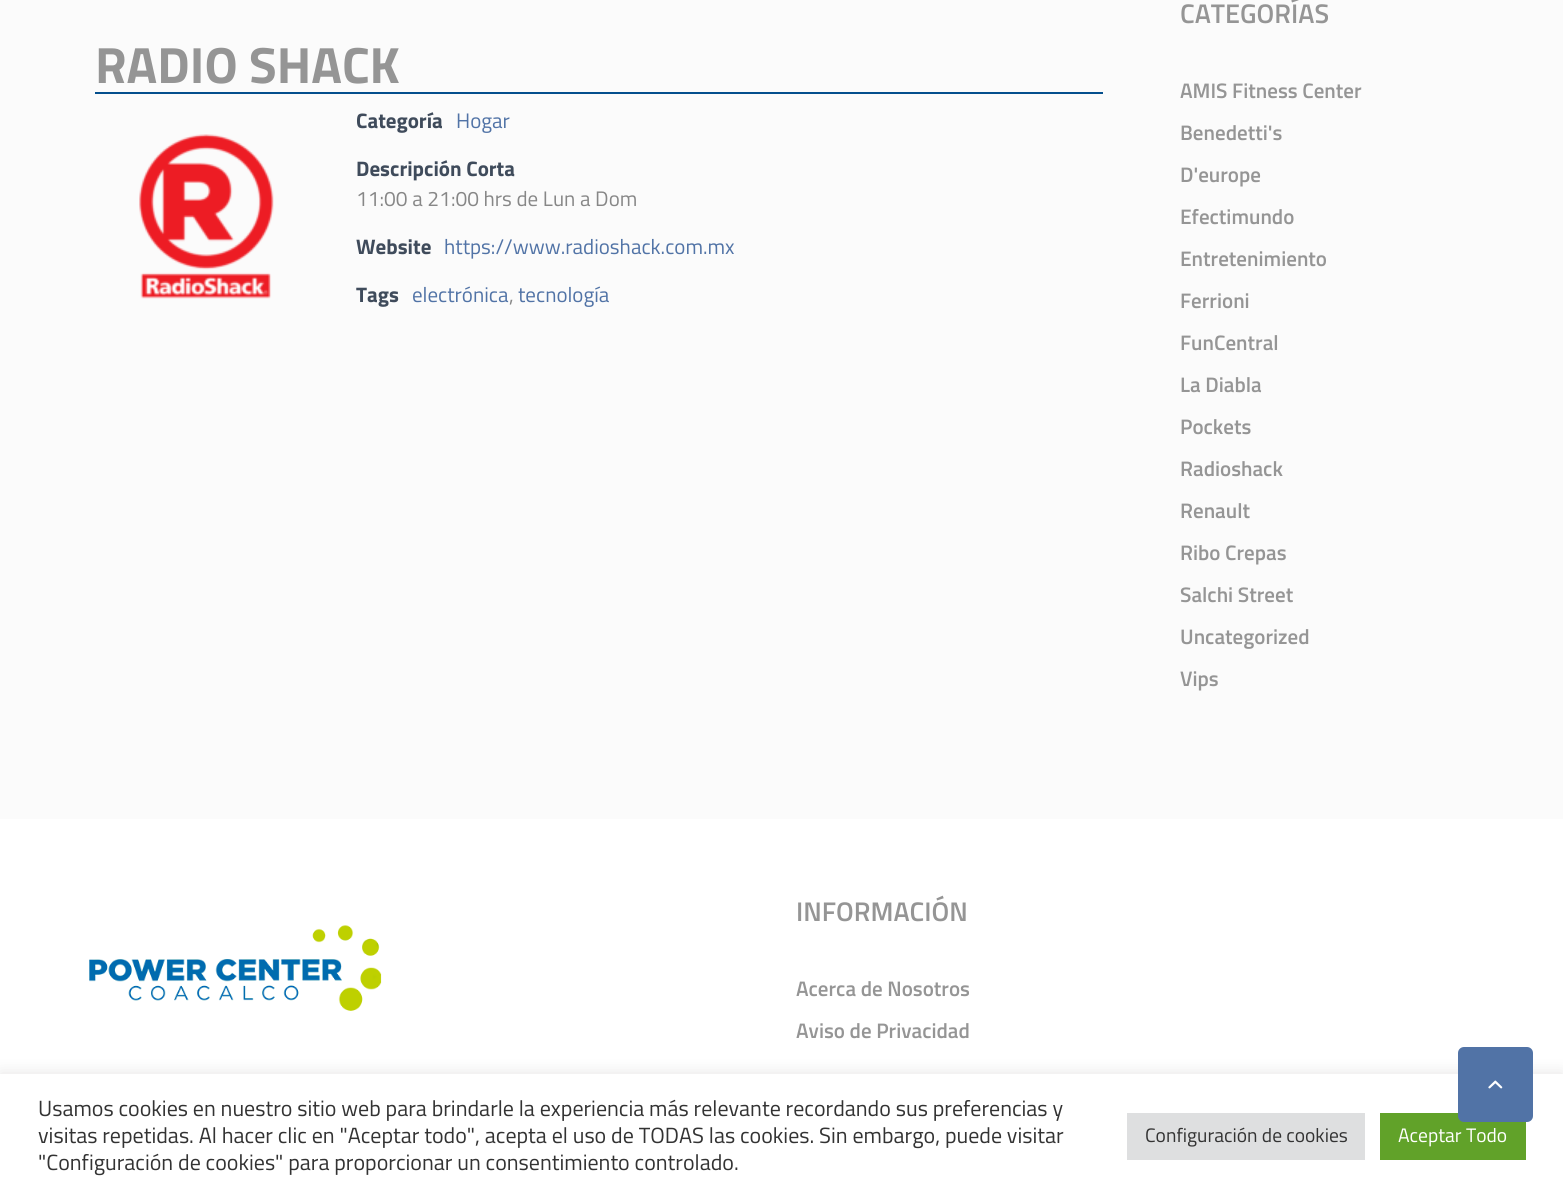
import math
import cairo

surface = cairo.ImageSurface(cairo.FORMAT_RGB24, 1563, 1197)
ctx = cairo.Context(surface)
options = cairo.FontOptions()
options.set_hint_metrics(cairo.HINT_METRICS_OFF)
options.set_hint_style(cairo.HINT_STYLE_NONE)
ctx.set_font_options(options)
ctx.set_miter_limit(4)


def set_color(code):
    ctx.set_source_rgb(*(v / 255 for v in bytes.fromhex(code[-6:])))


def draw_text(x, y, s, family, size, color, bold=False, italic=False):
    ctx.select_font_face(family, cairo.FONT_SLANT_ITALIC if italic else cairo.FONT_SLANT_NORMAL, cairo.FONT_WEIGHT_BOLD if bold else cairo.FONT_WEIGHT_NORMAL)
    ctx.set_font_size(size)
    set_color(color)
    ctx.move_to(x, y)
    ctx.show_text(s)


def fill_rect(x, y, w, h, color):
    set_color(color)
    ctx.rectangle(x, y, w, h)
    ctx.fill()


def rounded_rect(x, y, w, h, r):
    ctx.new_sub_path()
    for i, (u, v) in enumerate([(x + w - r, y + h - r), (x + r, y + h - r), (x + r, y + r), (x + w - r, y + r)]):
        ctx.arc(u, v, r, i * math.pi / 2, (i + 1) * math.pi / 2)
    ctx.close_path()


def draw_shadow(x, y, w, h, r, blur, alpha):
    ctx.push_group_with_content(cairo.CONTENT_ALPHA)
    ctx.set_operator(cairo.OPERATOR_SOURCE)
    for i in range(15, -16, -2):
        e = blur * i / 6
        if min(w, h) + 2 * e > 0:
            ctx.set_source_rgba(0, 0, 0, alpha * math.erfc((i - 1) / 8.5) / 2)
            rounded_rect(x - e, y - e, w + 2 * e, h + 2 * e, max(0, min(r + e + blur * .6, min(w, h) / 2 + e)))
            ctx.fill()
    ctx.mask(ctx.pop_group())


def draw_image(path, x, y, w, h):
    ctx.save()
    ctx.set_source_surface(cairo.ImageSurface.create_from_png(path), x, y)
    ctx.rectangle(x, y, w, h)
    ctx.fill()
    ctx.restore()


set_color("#fbfbfb")
ctx.paint()
fill_rect(95, 92, 1008, 2, "#044f8d")
draw_text(95, 83, "RADIO SHACK", "Titillium Web", 51, "#959595", bold=True)
draw_image("assets/img1.png", 139, 134, 135, 165)
draw_text(356, 128, "Categoría", "Titillium Web", 21, "#3f4b5b", bold=True)
draw_text(456, 128, "Hogar", "Titillium Web", 21, "#5173a6")
draw_text(356, 176, "Descripción Corta", "Titillium Web", 21, "#3f4b5b", bold=True)
draw_text(356, 206, "11:00 a 21:00 hrs de Lun a Dom", "Titillium Web", 21, "#878787")
draw_text(356, 254, "Website", "Titillium Web", 21, "#3f4b5b", bold=True)
draw_text(444, 254, "https://www.radioshack.com.mx", "Titillium Web", 21, "#5173a6")
draw_text(356, 302, "Tags", "Titillium Web", 21, "#3f4b5b", bold=True)
draw_text(412, 302, "electrónica", "Titillium Web", 21, "#5173a6")
draw_text(509, 302, ",", "Titillium Web", 21, "#878787")
draw_text(518, 302, "tecnología", "Titillium Web", 21, "#5173a6")
draw_text(1180, 23, "CATEGORÍAS", "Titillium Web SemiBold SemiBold", 27, "#959595")
draw_text(1180, 98, "AMIS Fitness Center", "Titillium Web SemiBold SemiBold", 21, "#959595")
draw_text(1180, 140, "Benedetti's", "Titillium Web SemiBold SemiBold", 21, "#959595")
draw_text(1180, 182, "D'europe", "Titillium Web SemiBold SemiBold", 21, "#959595")
draw_text(1180, 224, "Efectimundo", "Titillium Web SemiBold SemiBold", 21, "#959595")
draw_text(1180, 266, "Entretenimiento", "Titillium Web SemiBold SemiBold", 21, "#959595")
draw_text(1180, 308, "Ferrioni", "Titillium Web SemiBold SemiBold", 21, "#959595")
draw_text(1180, 350, "FunCentral", "Titillium Web SemiBold SemiBold", 21, "#959595")
draw_text(1180, 392, "La Diabla", "Titillium Web SemiBold SemiBold", 21, "#959595")
draw_text(1180, 434, "Pockets", "Titillium Web SemiBold SemiBold", 21, "#959595")
draw_text(1180, 476, "Radioshack", "Titillium Web SemiBold SemiBold", 21, "#959595")
draw_text(1180, 518, "Renault", "Titillium Web SemiBold SemiBold", 21, "#959595")
draw_text(1180, 560, "Ribo Crepas", "Titillium Web SemiBold SemiBold", 21, "#959595")
draw_text(1180, 602, "Salchi Street", "Titillium Web SemiBold SemiBold", 21, "#959595")
draw_text(1180, 644, "Uncategorized", "Titillium Web SemiBold SemiBold", 21, "#959595")
draw_text(1180, 686, "Vips", "Titillium Web SemiBold SemiBold", 21, "#959595")
fill_rect(0, 819, 1563, 255, "#ffffff")
draw_image("assets/img2.png", 89, 925, 293, 86)
draw_text(796, 921, "INFORMACIÓN", "Titillium Web SemiBold SemiBold", 27, "#959595")
draw_text(796, 996, "Acerca de Nosotros", "Titillium Web SemiBold SemiBold", 21, "#959595")
draw_text(796, 1038, "Aviso de Privacidad", "Titillium Web SemiBold SemiBold", 21, "#959595")
set_color("#acabab")
draw_shadow(0, 1073, 1563, 123, 0, 7.5, 0.3)
fill_rect(0, 1074, 1563, 123, "#ffffff")
fill_rect(1380, 1113, 146, 47, "#61a229")
set_color("#5173a6")
rounded_rect(1458, 1047, 75, 75, 6)
ctx.fill()
draw_image("assets/img3.png", 1488, 1080, 15, 9)
draw_text(38, 1116, "Usamos cookies en nuestro sitio web para brindarle la experiencia más relevante recordando sus preferencias y", "Titillium Web", 22, "#333333")
draw_text(38, 1143, "visitas repetidas. Al hacer clic en \"Aceptar todo\", acepta el uso de TODAS las cookies. Sin embargo, puede visitar", "Titillium Web", 22, "#333333")
draw_text(38, 1170, "\"Configuración de cookies\" para proporcionar un consentimiento controlado.", "Titillium Web", 22, "#333333")
fill_rect(1127, 1113, 238, 47, "#dedfe0")
draw_text(1145, 1142, "Configuración de cookies", "Titillium Web", 19.5, "#333333")
draw_text(1398, 1142, "Aceptar Todo", "Titillium Web", 19.5, "#ffffff")
surface.write_to_png("output.png")
